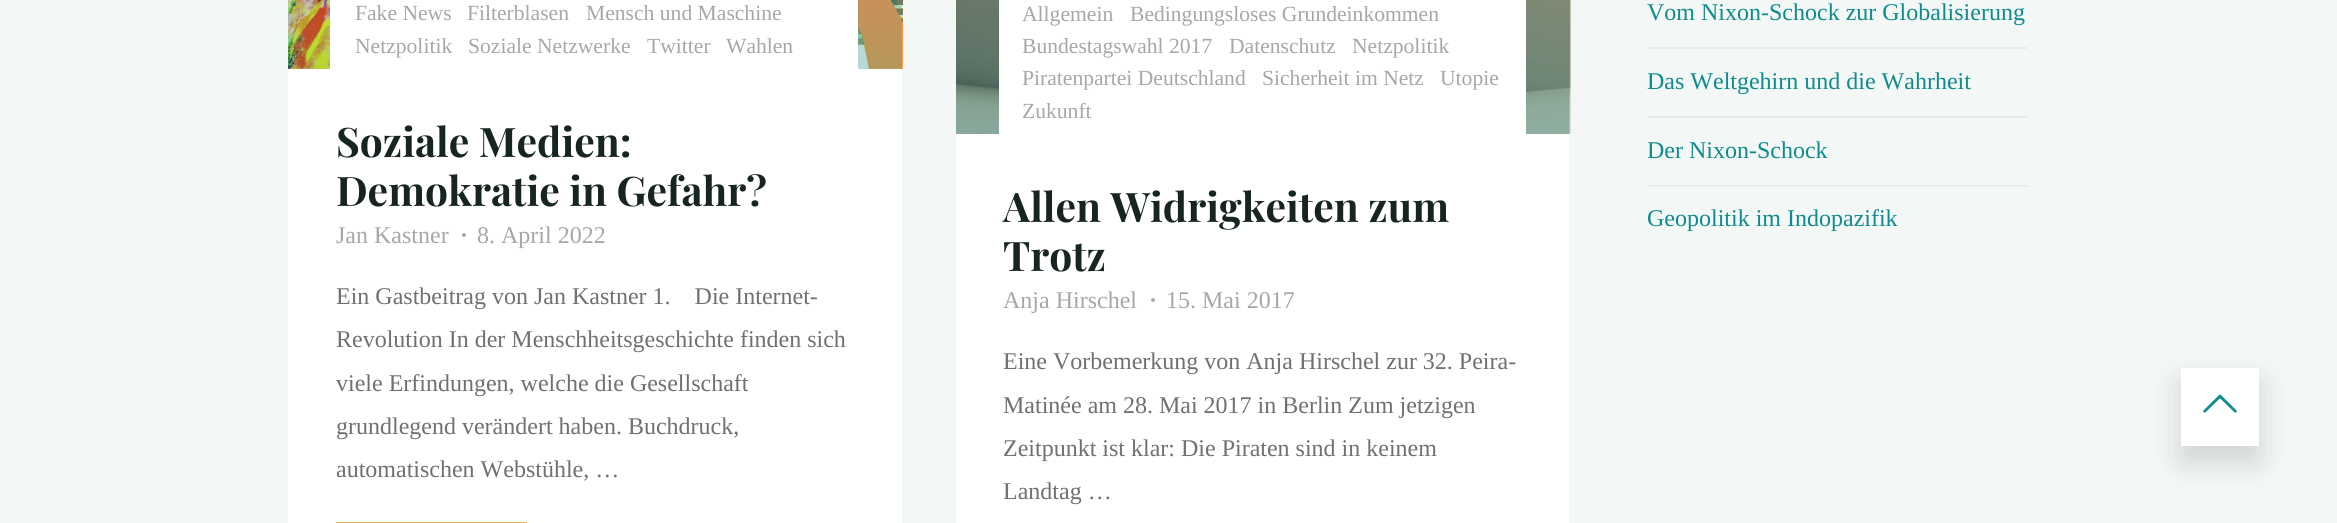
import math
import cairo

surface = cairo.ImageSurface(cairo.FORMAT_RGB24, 2337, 523)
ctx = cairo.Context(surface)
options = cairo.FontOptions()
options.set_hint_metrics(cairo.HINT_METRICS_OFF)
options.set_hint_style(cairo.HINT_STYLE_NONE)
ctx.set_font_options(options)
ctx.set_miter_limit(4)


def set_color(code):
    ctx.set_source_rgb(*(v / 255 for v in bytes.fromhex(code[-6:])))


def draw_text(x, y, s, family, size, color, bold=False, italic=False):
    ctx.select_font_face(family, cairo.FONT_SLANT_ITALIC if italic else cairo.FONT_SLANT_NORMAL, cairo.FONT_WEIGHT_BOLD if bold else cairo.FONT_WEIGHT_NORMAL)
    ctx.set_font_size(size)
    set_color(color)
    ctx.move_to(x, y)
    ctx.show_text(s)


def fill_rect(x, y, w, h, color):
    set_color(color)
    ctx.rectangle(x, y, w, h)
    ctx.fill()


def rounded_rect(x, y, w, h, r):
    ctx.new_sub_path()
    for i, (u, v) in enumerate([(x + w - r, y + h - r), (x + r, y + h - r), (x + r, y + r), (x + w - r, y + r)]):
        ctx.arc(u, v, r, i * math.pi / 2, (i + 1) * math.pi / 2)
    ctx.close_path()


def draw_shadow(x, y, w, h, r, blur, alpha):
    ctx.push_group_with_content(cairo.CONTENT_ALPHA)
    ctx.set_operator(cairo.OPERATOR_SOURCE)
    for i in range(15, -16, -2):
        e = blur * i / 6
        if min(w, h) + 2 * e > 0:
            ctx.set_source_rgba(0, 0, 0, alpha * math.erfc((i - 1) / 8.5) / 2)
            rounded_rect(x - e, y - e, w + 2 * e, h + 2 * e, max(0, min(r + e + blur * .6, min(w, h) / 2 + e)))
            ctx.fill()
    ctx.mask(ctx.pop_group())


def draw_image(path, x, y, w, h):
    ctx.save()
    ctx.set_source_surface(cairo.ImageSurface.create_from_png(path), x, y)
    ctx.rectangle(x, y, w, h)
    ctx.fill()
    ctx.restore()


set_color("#f3f7f6")
ctx.paint()
fill_rect(288, 68, 614, 455, "#ffffff")
draw_image("assets/img1.png", 288, 0, 615, 69)
gradient = cairo.LinearGradient(595, -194, 595, 69)
gradient.add_color_stop_rgba(0, 0.914, 0.706, 0.298, 0.3)
gradient.add_color_stop_rgba(1, 0.059, 0.545, 0.553, 0.3)
ctx.set_source(gradient)
ctx.rectangle(288, 0, 614, 69)
ctx.fill()
fill_rect(330, 0, 528, 69, "#ffffff")
draw_text(355, 20, "Fake News", "Liberation Serif", 21.6, "#a7a7a7")
draw_text(467, 20, "Filterblasen", "Liberation Serif", 21.6, "#a7a7a7")
draw_text(586, 20, "Mensch und Maschine", "Liberation Serif", 21.6, "#a7a7a7")
draw_text(355, 53, "Netzpolitik", "Liberation Serif", 21.6, "#a7a7a7")
draw_text(468, 53, "Soziale Netzwerke", "Liberation Serif", 21.6, "#a7a7a7")
draw_text(647, 53, "Twitter", "Liberation Serif", 21.6, "#a7a7a7")
draw_text(726, 53, "Wahlen", "Liberation Serif", 21.6, "#a7a7a7")
draw_text(336, 157, "Soziale Medien:", "Playfair Display", 40.75, "#162521", bold=True)
draw_text(336, 206, "Demokratie in Gefahr?", "Playfair Display", 40.75, "#162521", bold=True)
draw_text(336, 243, "Jan Kastner", "Liberation Serif", 24, "#a7a7a7")
draw_text(460, 243, "·", "Liberation Serif", 24, "#a7a7a7", bold=True)
draw_text(477, 243, "8. April 2022", "Liberation Serif", 24, "#a7a7a7")
draw_text(336, 304, "Ein Gastbeitrag von Jan Kastner 1.    Die Internet-", "Liberation Serif", 24, "#707070")
draw_text(336, 347, "Revolution In der Menschheitsgeschichte finden sich", "Liberation Serif", 24, "#707070")
draw_text(336, 391, "viele Erfindungen, welche die Gesellschaft", "Liberation Serif", 24, "#707070")
draw_text(336, 434, "grundlegend verändert haben. Buchdruck,", "Liberation Serif", 24, "#707070")
draw_text(336, 477, "automatischen Webstühle, …", "Liberation Serif", 24, "#707070")
ctx.rectangle(337.5, 523.5, 188, 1)
set_color("#e9b44c")
ctx.set_line_width(3)
ctx.stroke()
fill_rect(956, 134, 613, 389, "#ffffff")
draw_image("assets/img2.png", 956, 0, 615, 134)
fill_rect(999, 0, 527, 134, "#ffffff")
draw_text(1022, 21, "Allgemein", "Liberation Serif", 21.6, "#a7a7a7")
draw_text(1130, 21, "Bedingungsloses Grundeinkommen", "Liberation Serif", 21.6, "#a7a7a7")
draw_text(1022, 53, "Bundestagswahl 2017", "Liberation Serif", 21.6, "#a7a7a7")
draw_text(1229, 53, "Datenschutz", "Liberation Serif", 21.6, "#a7a7a7")
draw_text(1352, 53, "Netzpolitik", "Liberation Serif", 21.6, "#a7a7a7")
draw_text(1022, 85, "Piratenpartei Deutschland", "Liberation Serif", 21.6, "#a7a7a7")
draw_text(1262, 85, "Sicherheit im Netz", "Liberation Serif", 21.6, "#a7a7a7")
draw_text(1440, 85, "Utopie", "Liberation Serif", 21.6, "#a7a7a7")
draw_text(1022, 118, "Zukunft", "Liberation Serif", 21.6, "#a7a7a7")
draw_text(1003, 222, "Allen Widrigkeiten zum", "Playfair Display", 40.75, "#162521", bold=True)
draw_text(1003, 271, "Trotz", "Playfair Display", 40.75, "#162521", bold=True)
draw_text(1003, 308, "Anja Hirschel", "Liberation Serif", 24, "#a7a7a7")
draw_text(1149, 308, "·", "Liberation Serif", 24, "#a7a7a7", bold=True)
draw_text(1166, 308, "15. Mai 2017", "Liberation Serif", 24, "#a7a7a7")
draw_text(1003, 369, "Eine Vorbemerkung von Anja Hirschel zur 32. Peira-", "Liberation Serif", 24, "#707070")
draw_text(1003, 413, "Matinée am 28. Mai 2017 in Berlin Zum jetzigen", "Liberation Serif", 24, "#707070")
draw_text(1003, 456, "Zeitpunkt ist klar: Die Piraten sind in keinem", "Liberation Serif", 24, "#707070")
draw_text(1003, 499, "Landtag …", "Liberation Serif", 24, "#707070")
fill_rect(1647, 47, 380, 2, "#e7ebea")
draw_text(1647, 20, "Vom Nixon-Schock zur Globalisierung", "Liberation Serif", 24, "#0f8b8d")
fill_rect(1647, 116, 380, 2, "#e7ebea")
draw_text(1647, 89, "Das Weltgehirn und die Wahrheit", "Liberation Serif", 24, "#0f8b8d")
fill_rect(1647, 185, 380, 2, "#e7ebea")
draw_text(1647, 158, "Der Nixon-Schock", "Liberation Serif", 24, "#0f8b8d")
draw_text(1647, 226, "Geopolitik im Indopazifik", "Liberation Serif", 24, "#0f8b8d")
set_color("#000000")
draw_shadow(2181, 383, 78, 78, 0, 15, 0.15)
fill_rect(2181, 368, 78, 78, "#ffffff")
draw_image("assets/img3.png", 2203, 394, 34, 19)
surface.write_to_png("output.png")
